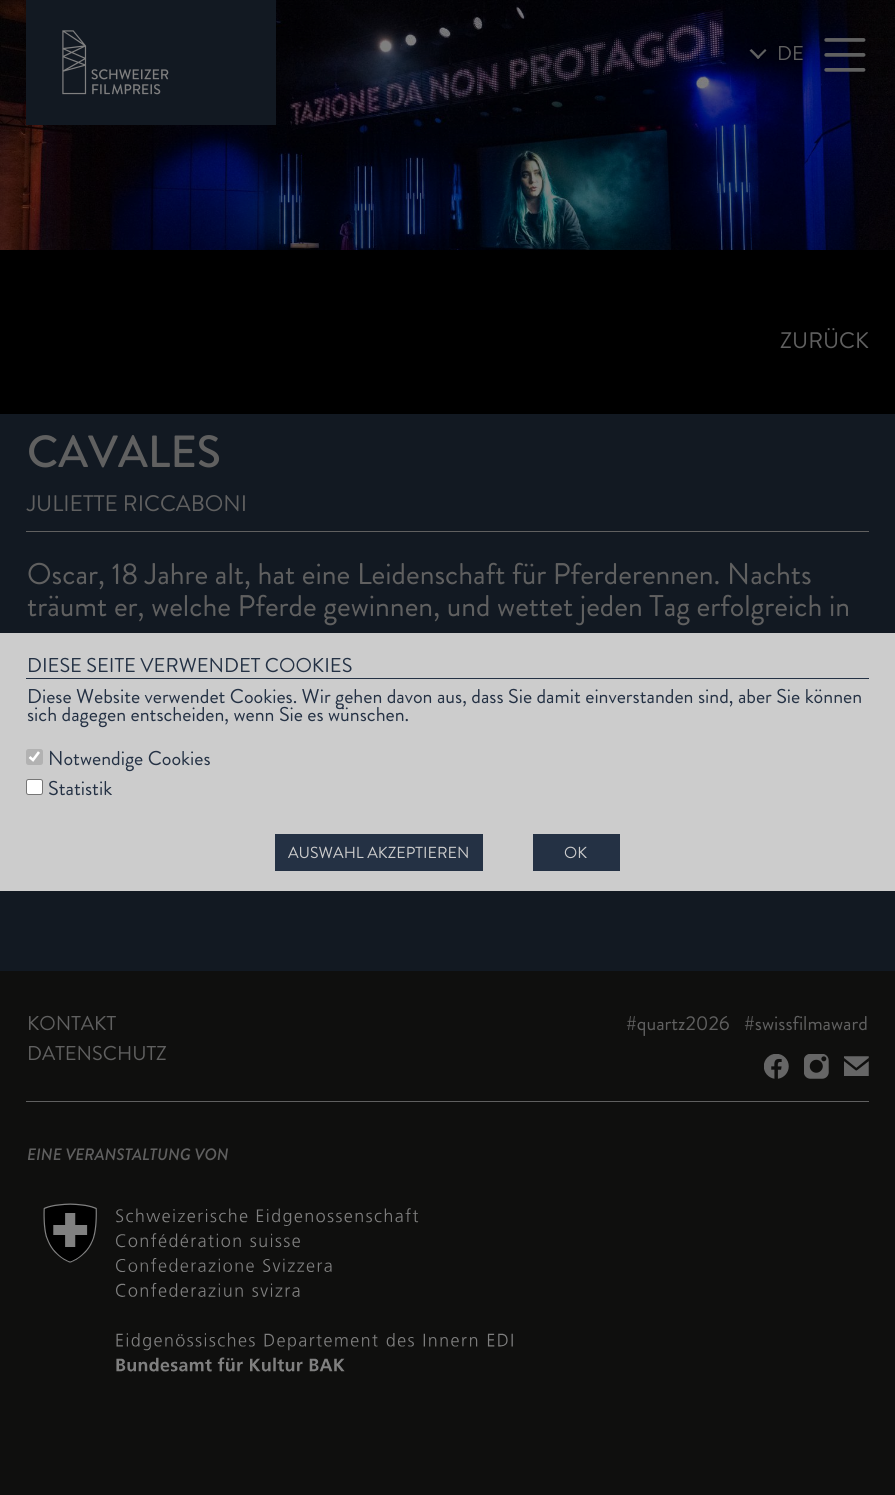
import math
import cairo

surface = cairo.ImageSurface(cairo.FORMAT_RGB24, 895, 1495)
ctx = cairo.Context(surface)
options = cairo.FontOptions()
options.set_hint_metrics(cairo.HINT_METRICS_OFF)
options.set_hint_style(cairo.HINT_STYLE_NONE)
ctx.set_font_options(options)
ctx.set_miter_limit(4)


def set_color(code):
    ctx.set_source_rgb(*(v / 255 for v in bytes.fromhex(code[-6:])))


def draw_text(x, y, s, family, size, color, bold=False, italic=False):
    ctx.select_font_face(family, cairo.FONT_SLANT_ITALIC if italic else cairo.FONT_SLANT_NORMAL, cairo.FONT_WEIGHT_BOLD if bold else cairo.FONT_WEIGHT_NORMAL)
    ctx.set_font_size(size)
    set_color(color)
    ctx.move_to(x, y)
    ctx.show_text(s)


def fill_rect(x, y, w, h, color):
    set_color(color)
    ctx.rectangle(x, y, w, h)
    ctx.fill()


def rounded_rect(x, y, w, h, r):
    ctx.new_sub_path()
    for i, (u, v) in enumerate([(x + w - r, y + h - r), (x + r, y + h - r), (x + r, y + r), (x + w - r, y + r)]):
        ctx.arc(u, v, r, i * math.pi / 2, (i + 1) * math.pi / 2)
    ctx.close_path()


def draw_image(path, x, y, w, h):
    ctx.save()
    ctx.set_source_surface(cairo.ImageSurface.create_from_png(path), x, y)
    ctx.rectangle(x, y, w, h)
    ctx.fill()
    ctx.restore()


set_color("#000000")
ctx.paint()
draw_image("assets/img3.png", 0, 0, 895, 250)
fill_rect(26, 0, 250, 125, "#121922")
draw_image("assets/img1.png", 62, 30, 107, 65)
set_color("#606060")
ctx.new_path()
ctx.move_to(756.5, 57.5)
ctx.line_to(765, 49)
ctx.line_to(766.5, 50.5)
ctx.line_to(758, 59)
ctx.close_path()
ctx.fill()
ctx.new_path()
ctx.move_to(749.5, 50.5)
ctx.line_to(751.5, 49)
ctx.line_to(760, 57.5)
ctx.line_to(758, 59)
ctx.close_path()
ctx.fill()
draw_text(777, 60, "DE", "Brandon Grotesque", 20, "#606060")
draw_image("assets/img2.png", 824, 38, 42, 34)
draw_text(780, 348, "ZURÜCK", "Brandon Grotesque", 22.5, "#606060")
fill_rect(0, 414, 895, 557, "#121922")
fill_rect(26, 531, 843, 1, "#606060")
draw_text(27, 467, "CAVALES", "Brandon Grotesque Medium", 45, "#606060")
draw_text(27, 511, "JULIETTE RICCABONI", "Brandon Grotesque", 22.5, "#606060")
draw_text(27, 584, "Oscar, 18 Jahre alt, hat eine Leidenschaft für Pferderennen. Nachts", "Brandon Grotesque", 29.9, "#606060")
draw_text(27, 616, "träumt er, welche Pferde gewinnen, und wettet jeden Tag erfolgreich in", "Brandon Grotesque", 29.9, "#606060")
fill_rect(0, 633, 895, 258, "#cccccc")
fill_rect(26, 678, 843, 1, "#243144")
draw_text(27, 672, "DIESE SEITE VERWENDET COOKIES", "Brandon Grotesque", 20, "#243144")
draw_text(27, 703, "Diese Website verwendet Cookies. Wir gehen davon aus, dass Sie damit einverstanden sind, aber Sie können", "Brandon Grotesque", 20, "#243144")
draw_text(27, 721, "sich dagegen entscheiden, wenn Sie es wünschen.", "Brandon Grotesque", 20, "#243144")
set_color("#b2b2b2")
rounded_rect(26, 749, 17, 16, 2.5)
ctx.fill()
ctx.new_path()
ctx.move_to(29.5, 757)
ctx.line_to(33, 760)
ctx.line_to(39, 752)
set_color("#ffffff")
ctx.set_line_width(2.6)
ctx.stroke()
draw_text(48, 765, "Notwendige Cookies", "Brandon Grotesque", 20, "#243144")
set_color("#ffffff")
rounded_rect(26.5, 779.5, 16, 15, 2)
ctx.fill_preserve()
set_color("#767676")
ctx.set_line_width(1)
ctx.stroke()
draw_text(48, 795, "Statistik", "Brandon Grotesque", 20, "#243144")
fill_rect(275, 834, 208, 37, "#243144")
draw_text(288, 858, "AUSWAHL AKZEPTIEREN", "Brandon Grotesque", 16, "#cccccc")
fill_rect(533, 834, 87, 37, "#243144")
draw_text(564, 858, "OK", "Brandon Grotesque", 16, "#cccccc")
fill_rect(0, 971, 895, 524, "#0f0f0e")
fill_rect(26, 1101, 843, 1, "#606060")
draw_text(27, 1030, "KONTAKT", "Brandon Grotesque", 20, "#606060")
draw_text(27, 1060, "DATENSCHUTZ", "Brandon Grotesque", 20, "#606060")
draw_text(626, 1030, "#quartz2026", "Brandon Grotesque", 20, "#606060")
draw_text(744, 1030, "#swissfilmaward", "Brandon Grotesque", 20, "#606060")
draw_image("assets/img4.png", 764, 1054, 25, 25)
draw_image("assets/img5.png", 804, 1054, 25, 25)
draw_image("assets/img6.png", 844, 1056, 25, 20)
draw_text(27, 1160, "EINE VERANSTALTUNG VON", "Brandon Grotesque Medium", 16.5, "#606060", italic=True)
draw_image("assets/img7.png", 43, 1203, 470, 169)
surface.write_to_png("output.png")
